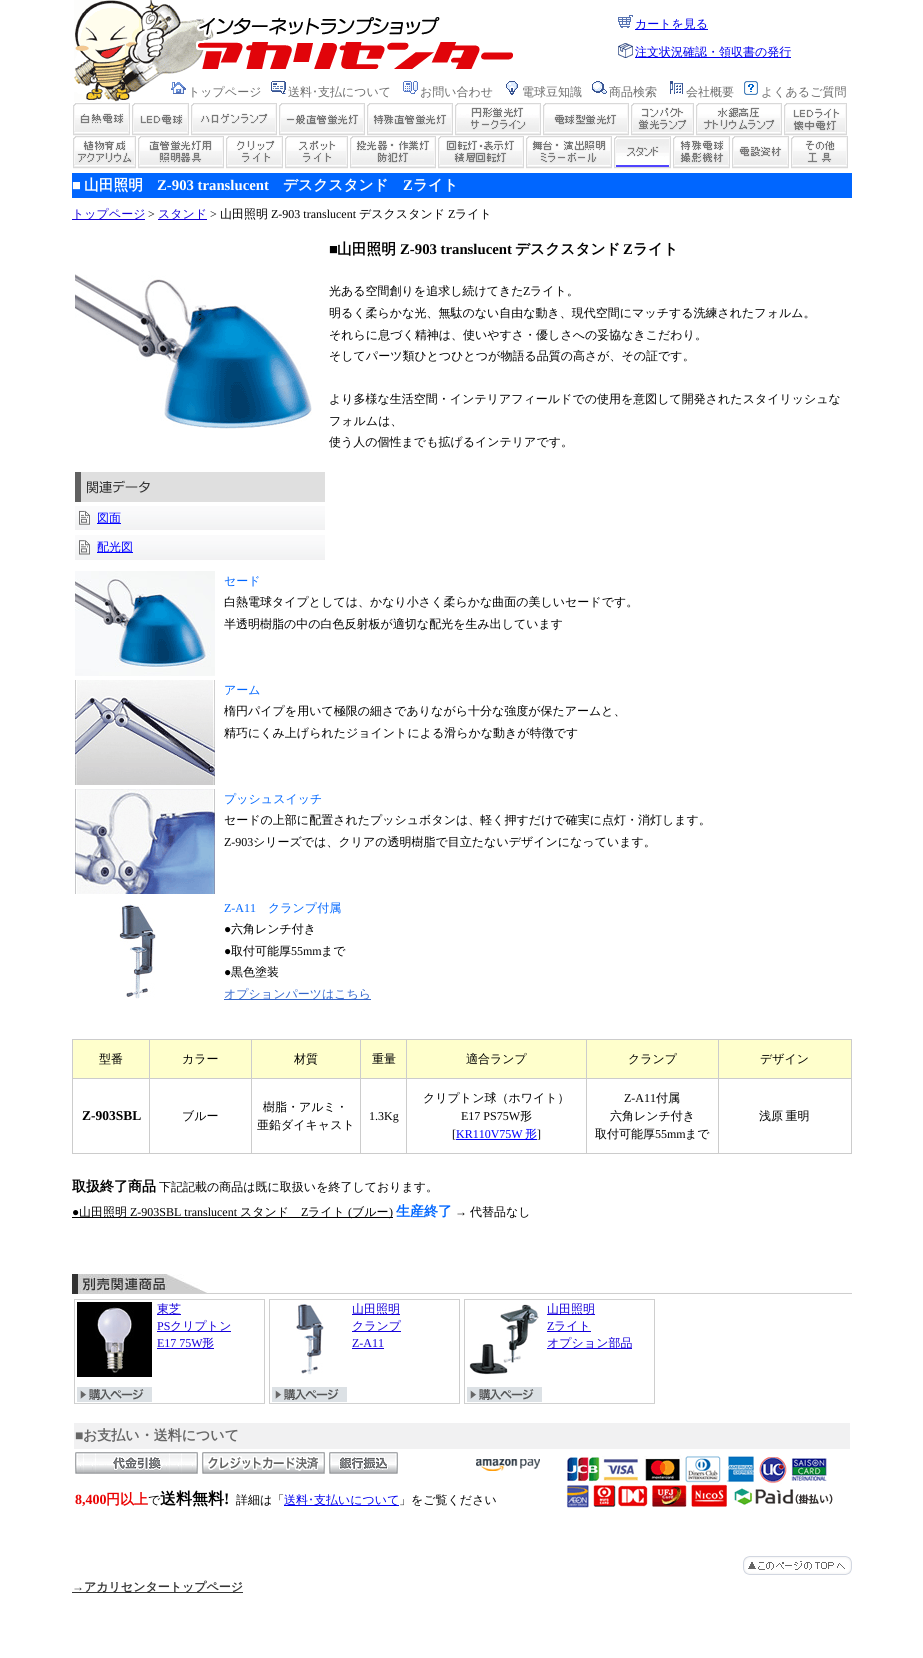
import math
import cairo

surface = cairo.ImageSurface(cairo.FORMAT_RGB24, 923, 1658)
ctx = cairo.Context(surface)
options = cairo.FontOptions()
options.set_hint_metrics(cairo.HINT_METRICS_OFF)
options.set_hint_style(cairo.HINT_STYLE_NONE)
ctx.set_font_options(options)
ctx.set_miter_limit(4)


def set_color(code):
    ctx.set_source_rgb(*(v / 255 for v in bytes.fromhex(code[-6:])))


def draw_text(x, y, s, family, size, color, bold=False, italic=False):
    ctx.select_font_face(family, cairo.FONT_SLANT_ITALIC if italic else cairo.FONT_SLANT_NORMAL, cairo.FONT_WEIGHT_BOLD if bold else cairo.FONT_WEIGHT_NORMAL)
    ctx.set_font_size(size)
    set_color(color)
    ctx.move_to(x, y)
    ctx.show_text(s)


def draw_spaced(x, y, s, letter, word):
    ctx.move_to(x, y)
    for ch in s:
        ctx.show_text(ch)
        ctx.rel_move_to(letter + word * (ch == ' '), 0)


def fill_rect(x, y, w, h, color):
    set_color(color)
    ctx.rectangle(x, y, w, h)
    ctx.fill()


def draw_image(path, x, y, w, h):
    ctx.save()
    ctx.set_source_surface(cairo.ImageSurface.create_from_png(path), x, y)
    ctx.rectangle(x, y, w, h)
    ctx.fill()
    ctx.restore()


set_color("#ffffff")
ctx.paint()
draw_image("assets/img1.png", 74, 0, 95, 102)
draw_image("assets/img2.png", 169, 5, 344, 69)
draw_image("assets/img3.png", 618, 15, 15, 13)
fill_rect(635, 29, 73, 1, "#0000ee")
draw_text(635, 28, "カートを見る", "WenQuanYi Zen Hei Medium", 12, "#0000ee")
draw_image("assets/img4.png", 618, 43, 15, 15)
fill_rect(635, 57, 156, 1, "#0000ee")
draw_text(635, 56, "注文状況確認・領収書の発行", "WenQuanYi Zen Hei Medium", 12, "#0000ee")
draw_image("assets/img5.png", 171, 82, 15, 12)
draw_text(188, 96, "トップページ", "WenQuanYi Zen Hei Medium", 12, "#6c6c6c")
draw_image("assets/img6.png", 271, 81, 15, 13)
draw_text(288, 96, "送料", "WenQuanYi Zen Hei Medium", 12, "#6c6c6c")
draw_text(312, 96, "･", "IPAGothic", 12, "#6c6c6c")
draw_text(318, 96, "支払について", "WenQuanYi Zen Hei Medium", 12, "#6c6c6c")
draw_image("assets/img7.png", 403, 81, 15, 13)
draw_text(420, 96, "お問い合わせ", "WenQuanYi Zen Hei Medium", 12, "#6c6c6c")
draw_image("assets/img8.png", 506, 81, 12, 14)
draw_text(522, 96, "電球豆知識", "WenQuanYi Zen Hei Medium", 12, "#6c6c6c")
draw_image("assets/img9.png", 592, 81, 15, 13)
draw_text(609, 96, "商品検索", "WenQuanYi Zen Hei Medium", 12, "#6c6c6c")
draw_image("assets/img10.png", 670, 81, 13, 13)
draw_text(686, 96, "会社概要", "WenQuanYi Zen Hei Medium", 12, "#6c6c6c")
draw_image("assets/img11.png", 744, 81, 14, 14)
draw_text(761, 96, "よくあるご質問", "WenQuanYi Zen Hei Medium", 12, "#6c6c6c")
draw_image("assets/img12.png", 73, 103, 57, 33)
draw_image("assets/img13.png", 132, 103, 57, 33)
draw_image("assets/img14.png", 191, 103, 86, 33)
draw_image("assets/img15.png", 279, 103, 86, 33)
draw_image("assets/img16.png", 367, 103, 86, 33)
draw_image("assets/img17.png", 455, 103, 86, 33)
draw_image("assets/img18.png", 543, 103, 86, 33)
draw_image("assets/img19.png", 631, 103, 63, 33)
draw_image("assets/img20.png", 696, 103, 86, 33)
draw_image("assets/img21.png", 784, 103, 63, 33)
draw_image("assets/img22.png", 73, 136, 63, 33)
draw_image("assets/img23.png", 138, 136, 86, 33)
draw_image("assets/img24.png", 226, 136, 57, 33)
draw_image("assets/img25.png", 285, 136, 63, 33)
draw_image("assets/img26.png", 350, 136, 86, 33)
draw_image("assets/img27.png", 438, 136, 86, 33)
draw_image("assets/img28.png", 526, 136, 86, 33)
draw_image("assets/img29.png", 614, 136, 57, 33)
draw_image("assets/img30.png", 673, 136, 57, 33)
draw_image("assets/img31.png", 732, 136, 57, 33)
draw_image("assets/img32.png", 791, 136, 57, 33)
fill_rect(72, 173, 780, 25, "#0066ff")
draw_text(72, 190, "■", "Liberation Serif", 14.75, "#ffffff", bold=True)
draw_text(84, 190, "山田照明", "WenQuanYi Zen Hei", 14.75, "#ffffff", bold=True)
draw_text(157, 190, "Z-903 translucent", "Liberation Serif", 14.75, "#ffffff", bold=True)
draw_text(283, 190, "デスクスタンド", "WenQuanYi Zen Hei", 14.75, "#ffffff", bold=True)
draw_text(403, 190, "Z", "Liberation Serif", 14.75, "#ffffff", bold=True)
draw_text(413, 190, "ライト", "WenQuanYi Zen Hei", 14.75, "#ffffff", bold=True)
fill_rect(72, 219, 73, 1, "#1500da")
draw_text(72, 218, "トップページ", "WenQuanYi Zen Hei Medium", 12, "#1500da")
draw_text(148, 218, ">", "Liberation Serif", 12, "#000000")
fill_rect(158, 219, 49, 1, "#1500da")
draw_text(158, 218, "スタンド", "WenQuanYi Zen Hei Medium", 12, "#1500da")
draw_text(210, 218, ">", "Liberation Serif", 12, "#000000")
draw_text(220, 218, "山田照明", "WenQuanYi Zen Hei Medium", 12, "#000000")
draw_text(271, 218, "Z-903 translucent", "Liberation Serif", 12, "#000000")
draw_text(359, 218, "デスクスタンド", "WenQuanYi Zen Hei Medium", 12, "#000000")
draw_text(448, 218, "Z", "Liberation Serif", 12, "#000000")
draw_text(455, 218, "ライト", "WenQuanYi Zen Hei Medium", 12, "#000000")
draw_text(329, 254, "■", "Liberation Serif", 14.75, "#000000", bold=True)
draw_text(337, 254, "山田照明", "WenQuanYi Zen Hei", 14.75, "#000000", bold=True)
draw_text(400, 254, "Z-903 translucent", "Liberation Serif", 14.75, "#000000", bold=True)
draw_text(515, 254, "デスクスタンド", "WenQuanYi Zen Hei", 14.75, "#000000", bold=True)
draw_text(623, 254, "Z", "Liberation Serif", 14.75, "#000000", bold=True)
draw_text(633, 254, "ライト", "WenQuanYi Zen Hei", 14.75, "#000000", bold=True)
draw_text(329, 295, "光ある空間創りを追求し続けてきた", "WenQuanYi Zen Hei Medium", 12, "#000000")
draw_text(523, 295, "Z", "Liberation Serif", 12, "#000000")
draw_text(530, 295, "ライト。", "WenQuanYi Zen Hei Medium", 12, "#000000")
draw_text(329, 317, "明るく柔らかな光、無駄のない自由な動き、現代空間にマッチする洗練されたフォルム。", "WenQuanYi Zen Hei Medium", 12, "#000000")
draw_text(329, 339, "それらに息づく精神は、使いやすさ・優しさへの妥協なきこだわり。", "WenQuanYi Zen Hei Medium", 12, "#000000")
draw_text(329, 360, "そしてパーツ類ひとつひとつが物語る品質の高さが、その証です。", "WenQuanYi Zen Hei Medium", 12, "#000000")
draw_text(329, 403, "より多様な生活空間・インテリアフィールドでの使用を意図して開発されたスタイリッシュな", "WenQuanYi Zen Hei Medium", 12, "#000000")
draw_text(329, 425, "フォルムは、", "WenQuanYi Zen Hei Medium", 12, "#000000")
draw_text(329, 446, "使う人の個性までも拡げるインテリアです。", "WenQuanYi Zen Hei Medium", 12, "#000000")
draw_image("assets/img33.png", 75, 274, 237, 155)
draw_image("assets/img34.png", 75, 472, 250, 30)
draw_image("assets/img35.png", 75, 506, 250, 24)
fill_rect(97, 523, 24, 1, "#0000ff")
draw_text(97, 522, "図面", "WenQuanYi Zen Hei Medium", 12, "#0000ff")
draw_image("assets/img36.png", 75, 535, 250, 25)
fill_rect(97, 552, 36, 1, "#0000ff")
draw_text(97, 551, "配光図", "WenQuanYi Zen Hei Medium", 12, "#0000ff")
draw_image("assets/img37.png", 75, 571, 140, 105)
draw_text(224, 585, "セード", "WenQuanYi Zen Hei Medium", 12, "#0066ff")
draw_text(224, 606, "白熱電球タイプとしては、かなり小さく柔らかな曲面の美しいセードです。", "WenQuanYi Zen Hei Medium", 12, "#000000")
draw_text(224, 628, "半透明樹脂の中の白色反射板が適切な配光を生み出しています", "WenQuanYi Zen Hei Medium", 12, "#000000")
draw_image("assets/img38.png", 75, 680, 140, 105)
draw_text(224, 694, "アーム", "WenQuanYi Zen Hei Medium", 12, "#0066ff")
draw_text(224, 715, "楕円パイプを用いて極限の細さでありながら十分な強度が保たアームと、", "WenQuanYi Zen Hei Medium", 12, "#000000")
draw_text(224, 737, "精巧にくみ上げられたジョイントによる滑らかな動きが特徴です", "WenQuanYi Zen Hei Medium", 12, "#000000")
draw_image("assets/img39.png", 75, 789, 140, 105)
draw_text(224, 803, "プッシュスイッチ", "WenQuanYi Zen Hei Medium", 12, "#0066ff")
draw_text(224, 824, "セードの上部に配置されたプッシュボタンは、軽く押すだけで確実に点灯・消灯します。", "WenQuanYi Zen Hei Medium", 12, "#000000")
draw_text(224, 846, "Z-903", "Liberation Serif", 12, "#000000")
draw_text(253, 846, "シリーズでは、クリアの透明樹脂で目立たないデザインになっています。", "WenQuanYi Zen Hei Medium", 12, "#000000")
draw_image("assets/img40.png", 119, 904, 37, 95)
draw_text(224, 912, "Z-A11", "Liberation Serif", 12, "#0066ff")
draw_text(268, 912, "クランプ付属", "WenQuanYi Zen Hei Medium", 12, "#0066ff")
draw_text(224, 933, "●", "Liberation Serif", 12, "#000000")
draw_text(231, 933, "六角レンチ付き", "WenQuanYi Zen Hei Medium", 12, "#000000")
draw_text(224, 955, "●", "Liberation Serif", 12, "#000000")
draw_text(231, 955, "取付可能厚", "WenQuanYi Zen Hei Medium", 12, "#000000")
draw_text(291, 955, "55mm", "Liberation Serif", 12, "#000000")
draw_text(321, 955, "まで", "WenQuanYi Zen Hei Medium", 12, "#000000")
draw_text(224, 976, "●", "Liberation Serif", 12, "#000000")
draw_text(231, 976, "黒色塗装", "WenQuanYi Zen Hei Medium", 12, "#000000")
fill_rect(224, 999, 147, 1, "#3366cc")
draw_text(224, 998, "オプションパーツはこちら", "WenQuanYi Zen Hei Medium", 12, "#3366cc")
fill_rect(72, 1039, 780, 1, "#cccccc")
fill_rect(851, 1039, 1, 115, "#cccccc")
fill_rect(72, 1153, 780, 1, "#cccccc")
fill_rect(72, 1039, 1, 115, "#cccccc")
fill_rect(73, 1040, 778, 38, "#ffffcc")
draw_text(99, 1063, "型番", "WenQuanYi Zen Hei Medium", 12, "#000000")
fill_rect(718, 1078, 134, 1, "#cccccc")
fill_rect(718, 1078, 1, 76, "#cccccc")
fill_rect(586, 1078, 133, 1, "#cccccc")
fill_rect(586, 1078, 1, 76, "#cccccc")
fill_rect(406, 1078, 181, 1, "#cccccc")
fill_rect(406, 1078, 1, 76, "#cccccc")
fill_rect(360, 1078, 47, 1, "#cccccc")
fill_rect(360, 1078, 1, 76, "#cccccc")
fill_rect(251, 1078, 110, 1, "#cccccc")
fill_rect(251, 1078, 1, 76, "#cccccc")
fill_rect(149, 1078, 103, 1, "#cccccc")
fill_rect(149, 1078, 1, 76, "#cccccc")
fill_rect(72, 1078, 78, 1, "#cccccc")
fill_rect(149, 1039, 1, 40, "#cccccc")
draw_text(182, 1063, "カラー", "WenQuanYi Zen Hei Medium", 12, "#000000")
fill_rect(251, 1039, 1, 40, "#cccccc")
draw_text(294, 1063, "材質", "WenQuanYi Zen Hei Medium", 12, "#000000")
fill_rect(360, 1039, 1, 40, "#cccccc")
draw_text(372, 1063, "重量", "WenQuanYi Zen Hei Medium", 12, "#000000")
fill_rect(406, 1039, 1, 40, "#cccccc")
draw_text(466, 1063, "適合ランプ", "WenQuanYi Zen Hei Medium", 12, "#000000")
fill_rect(586, 1039, 1, 40, "#cccccc")
draw_text(628, 1063, "クランプ", "WenQuanYi Zen Hei Medium", 12, "#000000")
fill_rect(718, 1039, 1, 40, "#cccccc")
draw_text(760, 1063, "デザイン", "WenQuanYi Zen Hei Medium", 12, "#000000")
draw_text(82, 1120, "Z-903SBL", "Liberation Serif", 13.5, "#000000", bold=True)
draw_text(182, 1120, "ブルー", "WenQuanYi Zen Hei Medium", 12, "#000000")
draw_text(263, 1111, "樹脂・アルミ・", "WenQuanYi Zen Hei Medium", 12, "#000000")
draw_text(257, 1129, "亜鉛ダイキャスト", "WenQuanYi Zen Hei Medium", 12, "#000000")
draw_text(369, 1120, "1.3Kg", "Liberation Serif", 12, "#000000")
draw_text(423, 1102, "クリプトン球（ホワイト）", "WenQuanYi Zen Hei Medium", 12, "#000000")
draw_text(461, 1120, "E17 PS75W", "Liberation Serif", 12, "#000000")
draw_text(520, 1120, "形", "WenQuanYi Zen Hei Medium", 12, "#000000")
draw_text(452, 1138, "[", "Liberation Serif", 12, "#000000")
draw_text(456, 1138, "KR110V75W", "Liberation Serif", 12, "#0000ff")
fill_rect(456, 1139, 81, 1, "#0000ff")
draw_text(525, 1138, "形", "WenQuanYi Zen Hei Medium", 12, "#0000ff")
draw_text(537, 1138, "]", "Liberation Serif", 12, "#000000")
draw_text(624, 1102, "Z-A11", "Liberation Serif", 12, "#000000")
draw_text(656, 1102, "付属", "WenQuanYi Zen Hei Medium", 12, "#000000")
draw_text(610, 1120, "六角レンチ付き", "WenQuanYi Zen Hei Medium", 12, "#000000")
draw_text(595, 1138, "取付可能厚", "WenQuanYi Zen Hei Medium", 12, "#000000")
draw_text(655, 1138, "55mm", "Liberation Serif", 12, "#000000")
draw_text(685, 1138, "まで", "WenQuanYi Zen Hei Medium", 12, "#000000")
draw_spaced(759, 1120, "浅原 重明", 0, -1)
draw_text(72, 1191, "取扱終了商品", "WenQuanYi Zen Hei", 14, "#000000", bold=True)
draw_text(159, 1191, "下記記載の商品は既に取扱いを終了しております。", "WenQuanYi Zen Hei Medium", 12, "#000000")
draw_text(72, 1216, "●", "Liberation Serif", 12, "#000000")
fill_rect(72, 1217, 321, 1, "#000000")
draw_text(79, 1216, "山田照明", "WenQuanYi Zen Hei Medium", 12, "#000000")
draw_text(130, 1216, "Z-903SBL translucent", "Liberation Serif", 12, "#000000")
draw_text(240, 1216, "スタンド", "WenQuanYi Zen Hei Medium", 12, "#000000")
draw_text(301, 1216, "Z", "Liberation Serif", 12, "#000000")
draw_text(308, 1216, "ライト", "WenQuanYi Zen Hei Medium", 12, "#000000")
draw_text(348, 1216, "(", "Liberation Serif", 12, "#000000")
draw_text(352, 1216, "ブルー", "WenQuanYi Zen Hei Medium", 12, "#000000")
draw_text(389, 1216, ")", "Liberation Serif", 12, "#000000")
draw_text(396, 1216, "生産終了", "WenQuanYi Zen Hei", 14, "#0066ff", bold=True)
draw_text(455, 1216, "→", "Liberation Serif", 12, "#000000")
draw_text(470, 1216, "代替品なし", "WenQuanYi Zen Hei Medium", 12, "#000000")
draw_image("assets/img41.png", 72, 1274, 780, 20)
draw_image("assets/img42.png", 74, 1299, 191, 105)
draw_image("assets/img43.png", 77, 1302, 75, 75)
fill_rect(157, 1314, 24, 1, "#1500da")
draw_text(157, 1313, "東芝", "WenQuanYi Zen Hei Medium", 12, "#1500da")
draw_text(157, 1330, "PS", "Liberation Serif", 12, "#1500da")
fill_rect(157, 1331, 74, 1, "#1500da")
draw_text(170, 1330, "クリプトン", "WenQuanYi Zen Hei Medium", 12, "#1500da")
draw_text(157, 1347, "E17 75W", "Liberation Serif", 12, "#1500da")
fill_rect(157, 1348, 57, 1, "#1500da")
draw_text(202, 1347, "形", "WenQuanYi Zen Hei Medium", 12, "#1500da")
draw_image("assets/img42.png", 269, 1299, 191, 105)
draw_image("assets/img44.png", 296, 1304, 28, 71)
fill_rect(352, 1314, 48, 1, "#1500da")
draw_text(352, 1313, "山田照明", "WenQuanYi Zen Hei Medium", 12, "#1500da")
fill_rect(352, 1331, 49, 1, "#1500da")
draw_text(352, 1330, "クランプ", "WenQuanYi Zen Hei Medium", 12, "#1500da")
draw_text(352, 1347, "Z-A11", "Liberation Serif", 12, "#1500da")
fill_rect(352, 1348, 32, 1, "#1500da")
draw_image("assets/img42.png", 464, 1299, 191, 105)
draw_image("assets/img45.png", 469, 1304, 70, 71)
fill_rect(547, 1314, 48, 1, "#1500da")
draw_text(547, 1313, "山田照明", "WenQuanYi Zen Hei Medium", 12, "#1500da")
draw_text(547, 1330, "Z", "Liberation Serif", 12, "#1500da")
fill_rect(547, 1331, 44, 1, "#1500da")
draw_text(554, 1330, "ライト", "WenQuanYi Zen Hei Medium", 12, "#1500da")
fill_rect(547, 1348, 85, 1, "#1500da")
draw_text(547, 1347, "オプション部品", "WenQuanYi Zen Hei Medium", 12, "#1500da")
fill_rect(74, 1423, 776, 26, "#f1f1f2")
draw_text(75, 1440, "■", "Liberation Serif", 14, "#666666", bold=True)
draw_text(83, 1440, "お支払い・送料について", "WenQuanYi Zen Hei", 14, "#666666", bold=True)
draw_image("assets/img46.png", 75, 1452, 123, 22)
draw_image("assets/img47.png", 202, 1452, 123, 22)
draw_image("assets/img48.png", 329, 1452, 69, 22)
draw_image("assets/img49.png", 476, 1459, 64, 12)
draw_image("assets/img50.png", 566, 1455, 267, 53)
draw_text(75, 1504, "8,400", "Liberation Serif", 14, "#ea0000", bold=True)
draw_text(106, 1504, "円以上", "WenQuanYi Zen Hei", 14, "#ea0000", bold=True)
draw_text(148, 1504, "で", "WenQuanYi Zen Hei Medium", 12, "#000000")
draw_text(160, 1504, "送料無料", "WenQuanYi Zen Hei", 16, "#000000", bold=True)
draw_text(224, 1504, "!", "Liberation Serif", 16, "#000000", bold=True)
draw_text(236, 1504, "詳細は「", "WenQuanYi Zen Hei Medium", 12, "#000000")
fill_rect(284, 1505, 115, 1, "#0000ee")
draw_text(284, 1504, "送料", "WenQuanYi Zen Hei Medium", 12, "#0000ee")
draw_text(308, 1504, "･", "IPAGothic", 12, "#0000ee")
draw_text(314, 1504, "支払いについて", "WenQuanYi Zen Hei Medium", 12, "#0000ee")
draw_text(399, 1504, "」をご覧ください", "WenQuanYi Zen Hei Medium", 12, "#000000")
draw_image("assets/img51.png", 743, 1556, 109, 19)
draw_text(72, 1591, "→", "Liberation Serif", 12, "#363636", bold=True)
fill_rect(72, 1592, 171, 1, "#363636")
draw_text(84, 1591, "アカリセンタートップページ", "WenQuanYi Zen Hei", 12, "#363636", bold=True)
surface.write_to_png("output.png")
